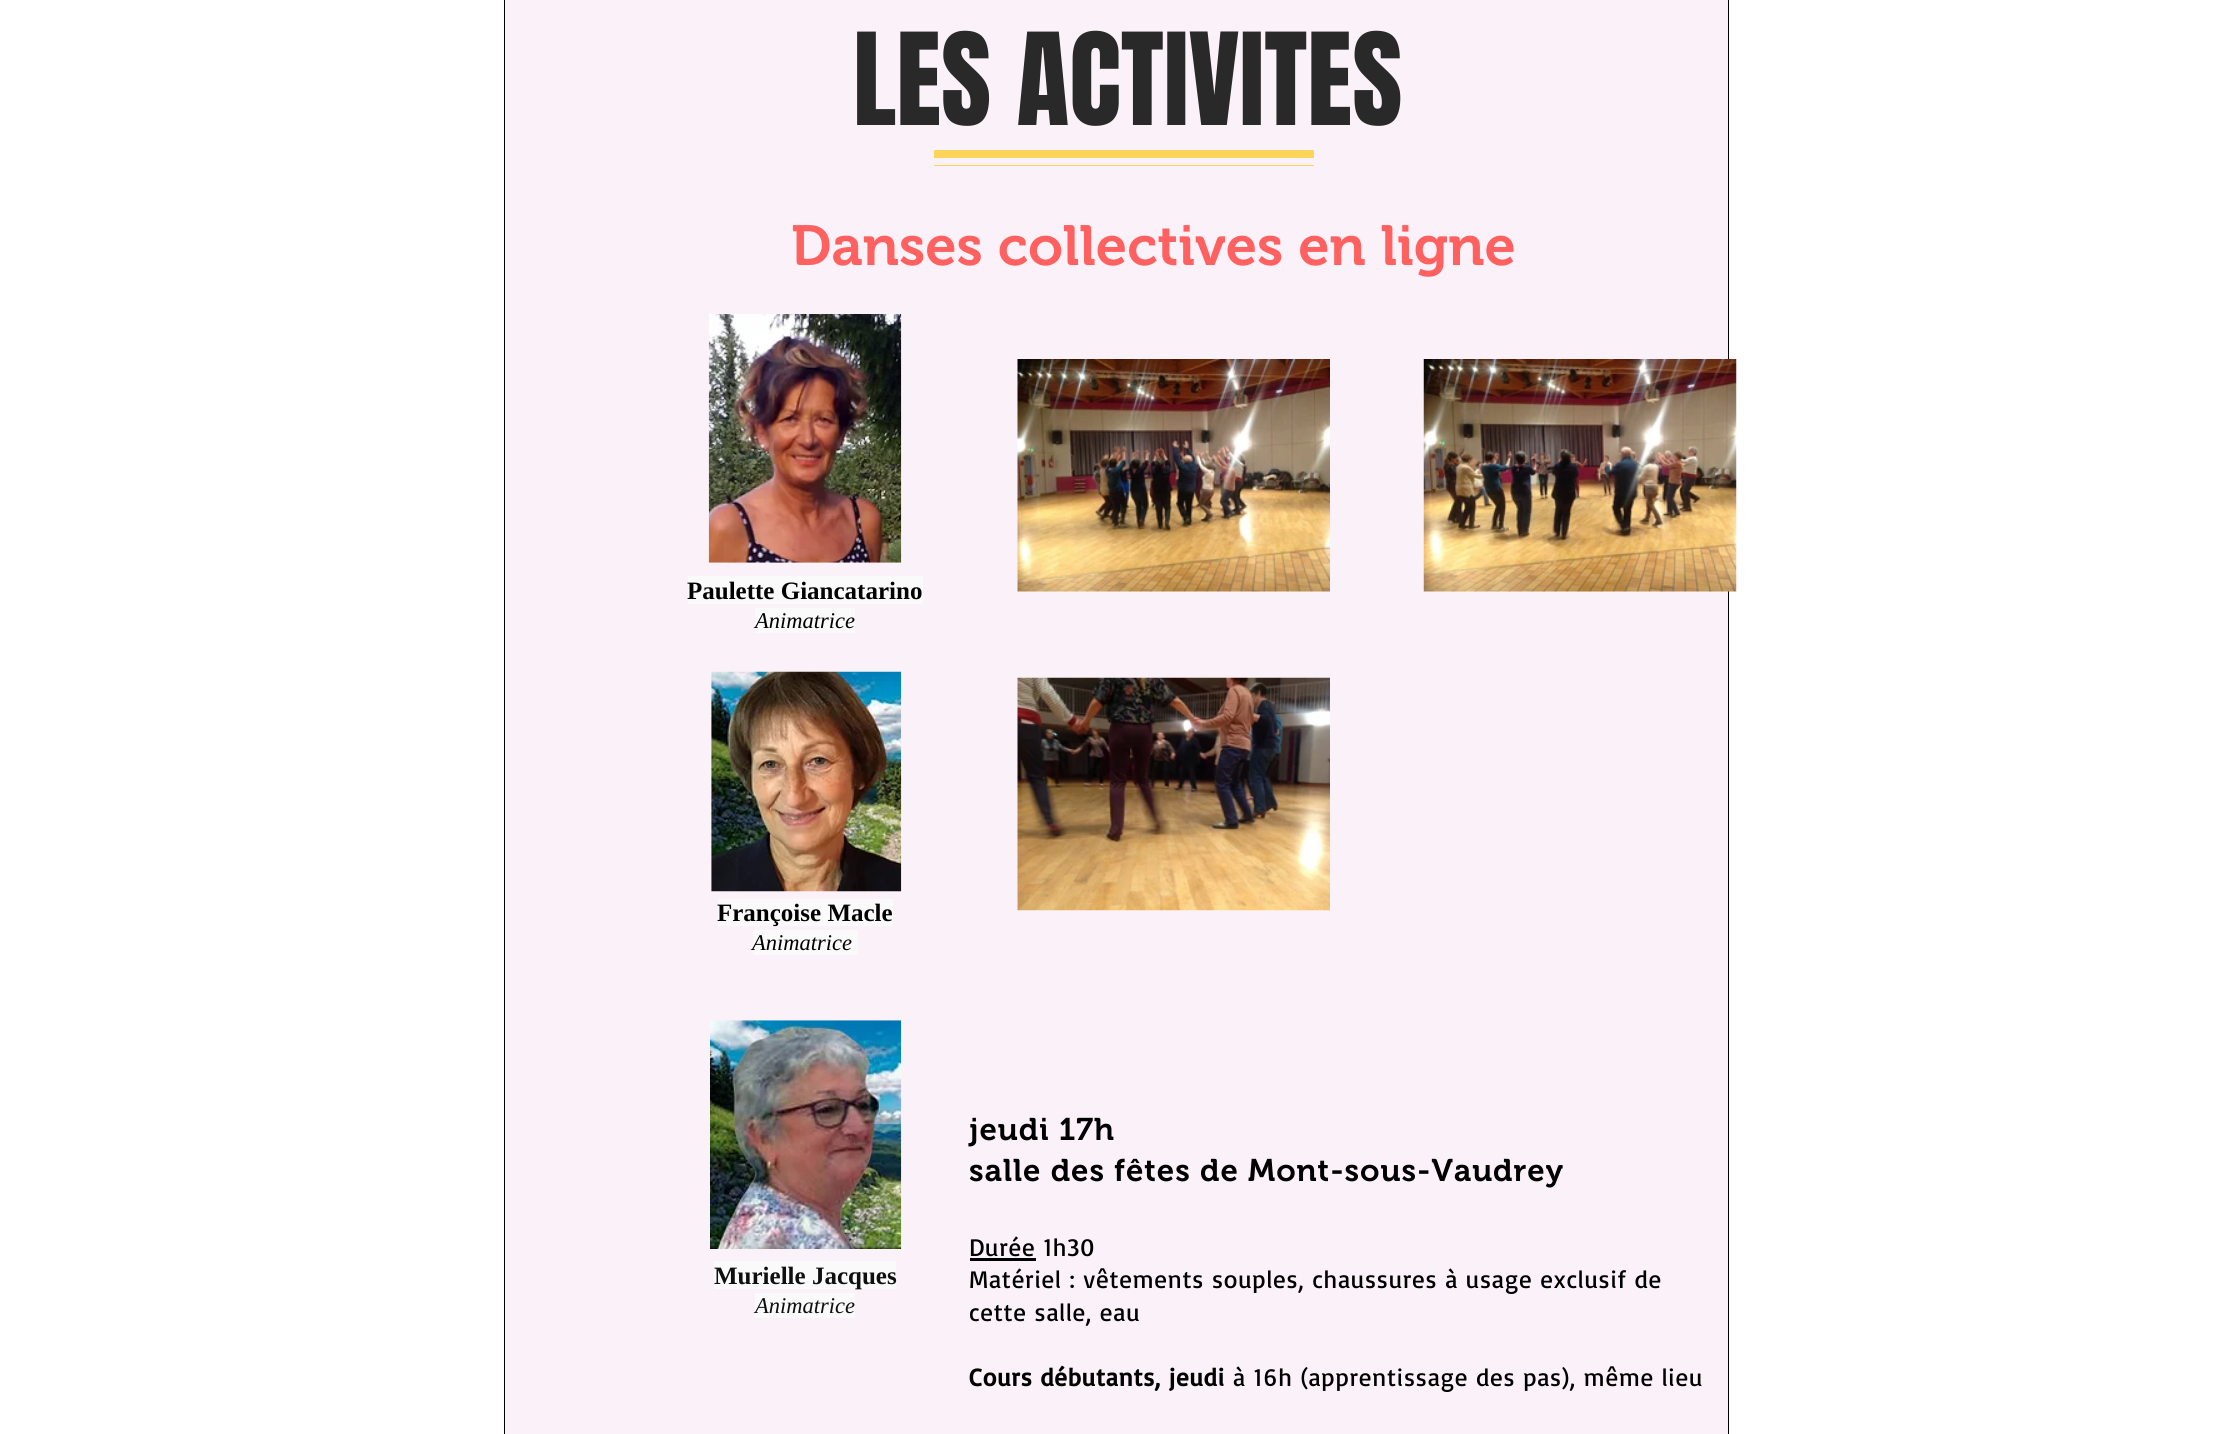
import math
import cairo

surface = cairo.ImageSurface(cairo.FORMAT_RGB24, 2231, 1434)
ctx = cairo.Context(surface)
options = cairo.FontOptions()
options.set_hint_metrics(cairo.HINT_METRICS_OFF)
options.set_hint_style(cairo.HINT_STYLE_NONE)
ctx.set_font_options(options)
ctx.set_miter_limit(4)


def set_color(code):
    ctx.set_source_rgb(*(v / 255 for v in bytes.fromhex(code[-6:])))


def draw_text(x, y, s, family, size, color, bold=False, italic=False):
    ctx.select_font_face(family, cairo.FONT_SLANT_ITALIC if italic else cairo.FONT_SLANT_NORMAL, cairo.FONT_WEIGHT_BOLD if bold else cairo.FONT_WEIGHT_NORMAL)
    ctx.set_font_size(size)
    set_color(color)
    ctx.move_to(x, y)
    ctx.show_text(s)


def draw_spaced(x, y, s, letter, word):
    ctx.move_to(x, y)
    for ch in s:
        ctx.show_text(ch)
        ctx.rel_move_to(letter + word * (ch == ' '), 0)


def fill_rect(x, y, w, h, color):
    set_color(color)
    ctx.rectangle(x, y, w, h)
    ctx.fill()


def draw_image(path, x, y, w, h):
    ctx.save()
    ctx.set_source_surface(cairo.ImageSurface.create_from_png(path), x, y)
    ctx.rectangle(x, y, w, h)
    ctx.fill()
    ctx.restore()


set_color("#ffffff")
ctx.paint()
set_color("#faf2f8")
ctx.rectangle(504.5, -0.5, 1224, 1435)
ctx.fill_preserve()
set_color("#000000")
ctx.set_line_width(1)
ctx.stroke()
draw_text(853, 125, "LES ACTIVITES", "Anton", 108.75, "#292929")
fill_rect(934, 150, 380, 8, "#ffd45a")
fill_rect(934, 165, 380, 1, "#ffd45a")
draw_text(791, 265, "Danses collectives en ligne", "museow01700 SemiBold", 56.25, "#ff6161")
draw_image("assets/img1.png", 708, 314, 194, 249)
draw_image("assets/img2.png", 1017, 359, 313, 233)
draw_image("assets/img3.png", 1423, 359, 314, 233)
draw_image("assets/img4.png", 1017, 677, 313, 234)
fill_rect(688, 576, 235, 28, "#fafafa")
draw_text(687, 599, "Paulette Giancatarino", "Liberation Serif", 25, "#000000", bold=True)
fill_rect(755, 608, 100, 25, "#fafafa")
draw_text(755, 628, "Animatrice", "Liberation Serif", 22.5, "#000000", italic=True)
draw_image("assets/img5.png", 711, 671, 191, 221)
fill_rect(718, 899, 175, 27, "#fafafa")
draw_text(717, 921, "Françoise Macle", "Liberation Serif", 25, "#000000", bold=True)
fill_rect(753, 930, 105, 25, "#fafafa")
draw_text(752, 950, "Animatrice", "Liberation Serif", 22.5, "#000000", italic=True)
draw_image("assets/img6.png", 710, 1020, 192, 229)
ctx.select_font_face("museow01700 SemiBold")
ctx.set_font_size(31.25)
draw_spaced(969, 1140, "jeudi 17h", 0.95, 0)
draw_spaced(969, 1181, "salle des fêtes de Mont-sous-Vaudrey", 0.95, 0)
ctx.select_font_face("Basic")
ctx.set_font_size(25)
draw_spaced(969, 1256, "Durée 1h30", 0.75, 0)
fill_rect(970, 1258, 66, 3, "#000000")
draw_spaced(969, 1288, "Matériel : vêtements souples, chaussures à usage exclusif de", 0.75, 0)
draw_spaced(969, 1321, "cette salle, eau", 0.75, 0)
ctx.select_font_face("Basic", cairo.FONT_SLANT_NORMAL, cairo.FONT_WEIGHT_BOLD)
draw_spaced(969, 1386, "Cours débutants, jeudi", 0.75, 0)
ctx.select_font_face("Basic")
draw_spaced(1233, 1386, "à 16h (apprentissage des pas), même lieu", 0.75, 0)
fill_rect(714, 1261, 182, 28, "#fafafa")
draw_text(714, 1284, "Murielle Jacques", "Liberation Serif", 25, "#0f0f0f", bold=True)
fill_rect(755, 1293, 100, 25, "#fafafa")
draw_text(755, 1313, "Animatrice", "Liberation Serif", 22.5, "#0f0f0f", italic=True)
surface.write_to_png("output.png")
